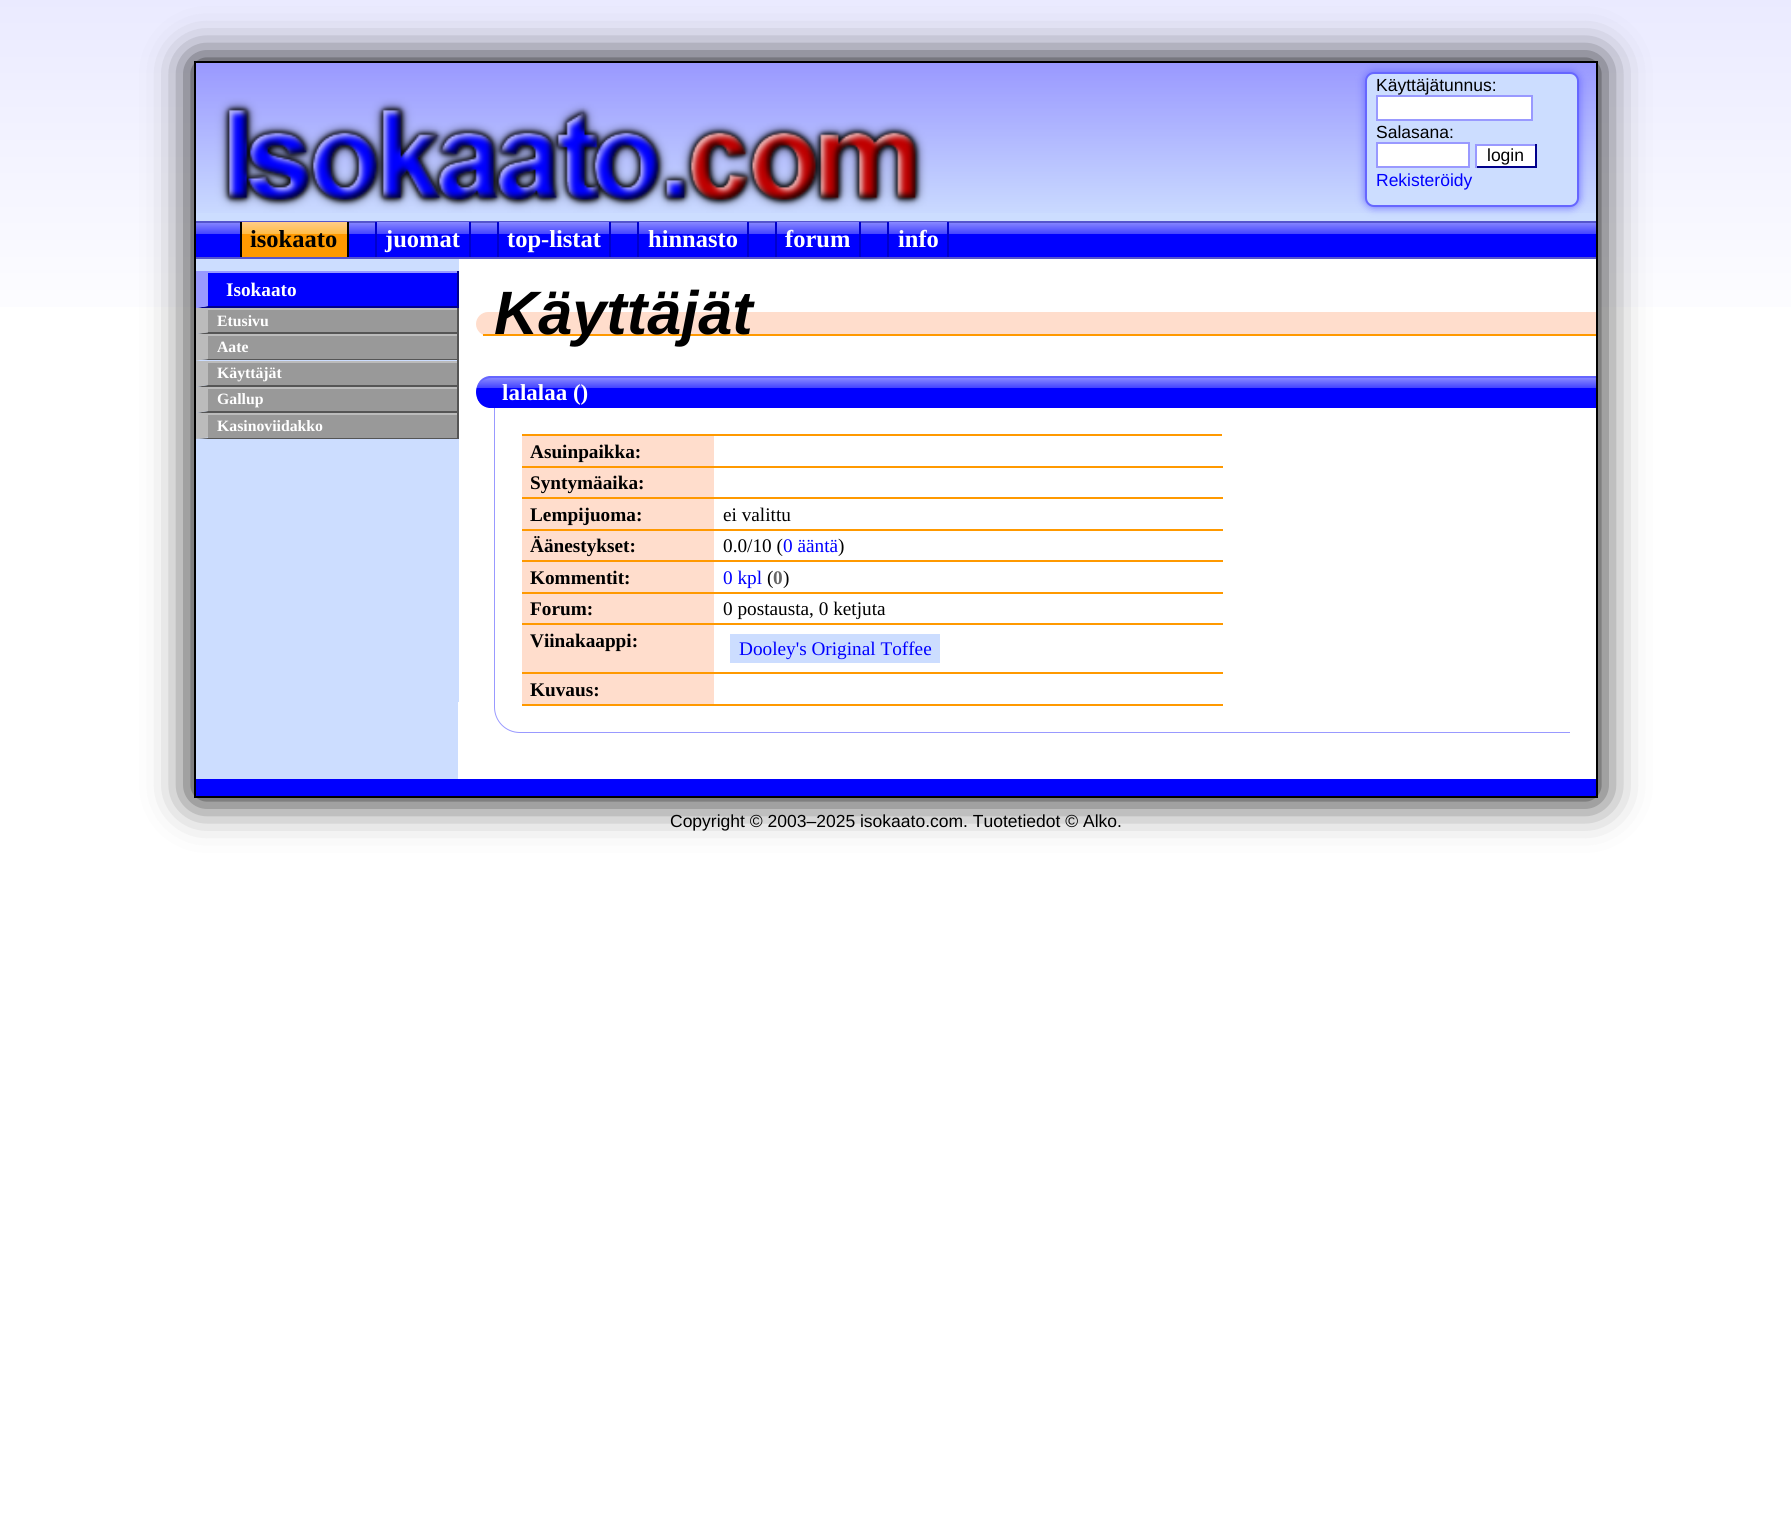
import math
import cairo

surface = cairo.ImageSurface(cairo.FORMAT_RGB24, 1791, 1513)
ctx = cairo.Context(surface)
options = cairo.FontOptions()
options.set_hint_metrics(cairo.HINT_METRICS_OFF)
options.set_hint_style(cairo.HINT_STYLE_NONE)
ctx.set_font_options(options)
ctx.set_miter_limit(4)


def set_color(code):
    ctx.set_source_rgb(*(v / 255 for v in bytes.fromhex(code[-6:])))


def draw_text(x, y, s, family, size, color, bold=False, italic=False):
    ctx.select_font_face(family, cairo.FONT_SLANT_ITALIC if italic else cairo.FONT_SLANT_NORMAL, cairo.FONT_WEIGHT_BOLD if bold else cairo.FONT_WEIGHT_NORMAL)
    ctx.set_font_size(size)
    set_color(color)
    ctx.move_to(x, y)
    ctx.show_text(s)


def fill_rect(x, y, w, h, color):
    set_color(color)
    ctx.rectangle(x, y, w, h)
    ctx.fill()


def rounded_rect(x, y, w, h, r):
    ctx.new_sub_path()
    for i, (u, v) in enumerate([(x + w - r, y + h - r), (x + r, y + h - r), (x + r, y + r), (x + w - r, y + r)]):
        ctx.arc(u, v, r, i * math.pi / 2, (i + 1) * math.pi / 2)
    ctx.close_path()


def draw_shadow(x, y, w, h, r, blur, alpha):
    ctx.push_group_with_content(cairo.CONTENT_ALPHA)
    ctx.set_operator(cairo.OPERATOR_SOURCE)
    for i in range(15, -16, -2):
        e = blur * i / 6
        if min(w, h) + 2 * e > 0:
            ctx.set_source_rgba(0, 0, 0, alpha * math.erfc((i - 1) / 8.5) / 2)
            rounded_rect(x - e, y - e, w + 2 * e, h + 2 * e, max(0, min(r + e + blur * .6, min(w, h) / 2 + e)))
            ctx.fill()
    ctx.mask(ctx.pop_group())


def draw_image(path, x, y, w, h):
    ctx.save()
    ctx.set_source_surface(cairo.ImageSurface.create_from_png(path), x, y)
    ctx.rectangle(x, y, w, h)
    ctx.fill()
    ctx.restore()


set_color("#ffffff")
ctx.paint()
gradient = cairo.LinearGradient(896, 0, 896, 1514)
gradient.add_color_stop_rgba(0, 0.918, 0.918, 1, 1)
gradient.add_color_stop_rgba(0.23, 1, 1, 1, 1)
ctx.set_source(gradient)
ctx.rectangle(0, 0, 1791, 307)
ctx.fill()
set_color("#000000")
draw_shadow(194, 61, 1404, 737, 0, 22, 1)
fill_rect(196, 702, 262, 77, "#ccddff")
fill_rect(458, 259, 1138, 520, "#ffffff")
ctx.rectangle(195, 62, 1402, 735)
set_color("#000000")
ctx.stroke()
fill_rect(196, 213, 1400, 8, "#ccddff")
draw_image("assets/img1.png", 196, 63, 1400, 150)
fill_rect(196, 221, 1400, 2, "#5555cc")
set_color("#6666ff")
draw_shadow(1365, 72, 214, 135, 9, 4.5, 1)
set_color("#ccddff")
rounded_rect(1366, 73, 212, 133, 8)
ctx.fill_preserve()
set_color("#6666ff")
ctx.stroke()
draw_text(1376, 91, "Käyttäjätunnus:", "Liberation Sans", 17.5, "#000000")
set_color("#ffffff")
ctx.rectangle(1377, 96, 155, 24)
ctx.fill_preserve()
set_color("#9999ff")
ctx.stroke()
draw_text(1376, 138, "Salasana:", "Liberation Sans", 17.5, "#000000")
set_color("#ffffff")
ctx.rectangle(1377, 143, 92, 24)
ctx.fill_preserve()
set_color("#9999ff")
ctx.stroke()
fill_rect(1477, 146, 58, 20, "#ffffff")
fill_rect(1475, 144, 62, 2, "#9999ff")
fill_rect(1535, 144, 2, 24, "#00008b")
fill_rect(1475, 166, 62, 2, "#00008b")
fill_rect(1475, 144, 2, 24, "#9999ff")
draw_text(1487, 161, "login", "Liberation Sans", 17.5, "#000000")
draw_text(1376, 186, "Rekisteröidy", "Liberation Sans", 17.5, "#0000ff")
gradient = cairo.LinearGradient(896, 222, 896, 257)
gradient.add_color_stop_rgba(0, 0.533, 0.533, 1, 1)
gradient.add_color_stop_rgba(0.35, 0.267, 0.267, 1, 1)
gradient.add_color_stop_rgba(0.35, 0, 0, 1, 1)
ctx.set_source(gradient)
ctx.rectangle(196, 223, 1400, 34)
ctx.fill()
fill_rect(196, 257, 1400, 2, "#5555cc")
gradient = cairo.LinearGradient(294, 222, 294, 257)
gradient.add_color_stop_rgba(0, 1, 0.8, 0.533, 1)
gradient.add_color_stop_rgba(0.35, 1, 0.733, 0.267, 1)
gradient.add_color_stop_rgba(0.35, 1, 0.6, 0, 1)
ctx.set_source(gradient)
ctx.rectangle(242, 222, 105, 35)
ctx.fill()
fill_rect(347, 222, 2, 35, "#000000")
fill_rect(240, 222, 2, 35, "#000000")
draw_text(250, 247, "isokaato", "Liberation Serif", 24.5, "#000000", bold=True)
gradient = cairo.LinearGradient(423, 222, 423, 257)
gradient.add_color_stop_rgba(0, 0.533, 0.533, 1, 1)
gradient.add_color_stop_rgba(0.35, 0.267, 0.267, 1, 1)
gradient.add_color_stop_rgba(0.35, 0, 0, 1, 1)
ctx.set_source(gradient)
ctx.rectangle(377, 222, 92, 1)
ctx.fill()
fill_rect(469, 222, 2, 35, "#0000cc")
fill_rect(375, 222, 2, 35, "#0000cc")
draw_text(385, 247, "juomat", "Liberation Serif", 24.5, "#ffffff", bold=True)
gradient = cairo.LinearGradient(554, 222, 554, 257)
gradient.add_color_stop_rgba(0, 0.533, 0.533, 1, 1)
gradient.add_color_stop_rgba(0.35, 0.267, 0.267, 1, 1)
gradient.add_color_stop_rgba(0.35, 0, 0, 1, 1)
ctx.set_source(gradient)
ctx.rectangle(499, 222, 110, 1)
ctx.fill()
fill_rect(609, 222, 2, 35, "#0000cc")
fill_rect(497, 222, 2, 35, "#0000cc")
draw_text(507, 247, "top-listat", "Liberation Serif", 24.5, "#ffffff", bold=True)
gradient = cairo.LinearGradient(693, 222, 693, 257)
gradient.add_color_stop_rgba(0, 0.533, 0.533, 1, 1)
gradient.add_color_stop_rgba(0.35, 0.267, 0.267, 1, 1)
gradient.add_color_stop_rgba(0.35, 0, 0, 1, 1)
ctx.set_source(gradient)
ctx.rectangle(639, 222, 108, 1)
ctx.fill()
fill_rect(747, 222, 2, 35, "#0000cc")
fill_rect(637, 222, 2, 35, "#0000cc")
draw_text(648, 247, "hinnasto", "Liberation Serif", 24.5, "#ffffff", bold=True)
gradient = cairo.LinearGradient(818, 222, 818, 257)
gradient.add_color_stop_rgba(0, 0.533, 0.533, 1, 1)
gradient.add_color_stop_rgba(0.35, 0.267, 0.267, 1, 1)
gradient.add_color_stop_rgba(0.35, 0, 0, 1, 1)
ctx.set_source(gradient)
ctx.rectangle(777, 222, 82, 1)
ctx.fill()
fill_rect(859, 222, 2, 35, "#0000cc")
fill_rect(775, 222, 2, 35, "#0000cc")
draw_text(785, 247, "forum", "Liberation Serif", 24.5, "#ffffff", bold=True)
gradient = cairo.LinearGradient(918, 222, 918, 257)
gradient.add_color_stop_rgba(0, 0.533, 0.533, 1, 1)
gradient.add_color_stop_rgba(0.35, 0.267, 0.267, 1, 1)
gradient.add_color_stop_rgba(0.35, 0, 0, 1, 1)
ctx.set_source(gradient)
ctx.rectangle(889, 222, 58, 1)
ctx.fill()
fill_rect(947, 222, 2, 35, "#0000cc")
fill_rect(887, 222, 2, 35, "#0000cc")
draw_text(898, 247, "info", "Liberation Serif", 24.5, "#ffffff", bold=True)
fill_rect(196, 259, 263, 443, "#ccddff")
fill_rect(208, 273, 249, 33, "#0000ff")
fill_rect(196, 271, 263, 2, "#9999ff")
fill_rect(457, 271, 2, 37, "#00008b")
ctx.new_path()
ctx.move_to(458, 308)
ctx.line_to(196, 308)
ctx.line_to(208, 306)
ctx.line_to(457, 306)
ctx.close_path()
ctx.fill()
set_color("#9999ff")
ctx.new_path()
ctx.move_to(196, 308)
ctx.line_to(196, 271)
ctx.line_to(208, 273)
ctx.line_to(208, 306)
ctx.close_path()
ctx.fill()
draw_text(226, 296, "Isokaato", "Liberation Serif", 19.25, "#ffffff", bold=True)
fill_rect(208, 310, 249, 22, "#999999")
fill_rect(196, 308, 263, 2, "#bbbbbb")
fill_rect(457, 308, 2, 26, "#555555")
ctx.new_path()
ctx.move_to(458, 334)
ctx.line_to(196, 334)
ctx.line_to(208, 332)
ctx.line_to(457, 332)
ctx.close_path()
ctx.fill()
set_color("#bbbbbb")
ctx.new_path()
ctx.move_to(196, 334)
ctx.line_to(196, 308)
ctx.line_to(208, 310)
ctx.line_to(208, 332.5)
ctx.close_path()
ctx.fill()
draw_text(217, 326, "Etusivu", "Liberation Serif", 15.75, "#ffffff", bold=True)
fill_rect(208, 336, 249, 23, "#999999")
fill_rect(196, 334, 263, 2, "#bbbbbb")
fill_rect(457, 334, 2, 27, "#555555")
ctx.new_path()
ctx.move_to(458, 360)
ctx.line_to(196, 360)
ctx.line_to(208, 359)
ctx.line_to(457, 359)
ctx.close_path()
ctx.fill()
set_color("#bbbbbb")
ctx.new_path()
ctx.move_to(196, 360.5)
ctx.line_to(196, 334)
ctx.line_to(208, 336)
ctx.line_to(208, 359)
ctx.close_path()
ctx.fill()
draw_text(217, 352, "Aate", "Liberation Serif", 15.75, "#ffffff", bold=True)
fill_rect(208, 363, 249, 22, "#999999")
fill_rect(196, 361, 263, 2, "#bbbbbb")
fill_rect(457, 361, 2, 26, "#555555")
ctx.new_path()
ctx.move_to(458, 387)
ctx.line_to(196, 387)
ctx.line_to(208, 385)
ctx.line_to(457, 385)
ctx.close_path()
ctx.fill()
set_color("#bbbbbb")
ctx.new_path()
ctx.move_to(196, 387)
ctx.line_to(196, 360.5)
ctx.line_to(208, 362)
ctx.line_to(208, 385)
ctx.close_path()
ctx.fill()
draw_text(217, 378, "Käyttäjät", "Liberation Serif", 15.75, "#ffffff", bold=True)
fill_rect(208, 389, 249, 22, "#999999")
fill_rect(196, 387, 263, 2, "#bbbbbb")
fill_rect(457, 387, 2, 26, "#555555")
ctx.new_path()
ctx.move_to(458, 413)
ctx.line_to(196, 413)
ctx.line_to(208, 411)
ctx.line_to(457, 411)
ctx.close_path()
ctx.fill()
set_color("#bbbbbb")
ctx.new_path()
ctx.move_to(196, 413)
ctx.line_to(196, 387)
ctx.line_to(208, 388.5)
ctx.line_to(208, 411)
ctx.close_path()
ctx.fill()
draw_text(217, 404, "Gallup", "Liberation Serif", 15.75, "#ffffff", bold=True)
fill_rect(208, 415, 249, 23, "#999999")
fill_rect(196, 413, 263, 2, "#bbbbbb")
fill_rect(457, 413, 2, 26, "#555555")
ctx.new_path()
ctx.move_to(458, 439)
ctx.line_to(196, 439)
ctx.line_to(208, 438)
ctx.line_to(457, 438)
ctx.close_path()
ctx.fill()
set_color("#bbbbbb")
ctx.new_path()
ctx.move_to(196, 439)
ctx.line_to(196, 413)
ctx.line_to(208, 415)
ctx.line_to(208, 437.5)
ctx.close_path()
ctx.fill()
draw_text(217, 431, "Kasinoviidakko", "Liberation Serif", 15.75, "#ffffff", bold=True)
set_color("#ffddcc")
ctx.new_path()
ctx.move_to(488, 312)
ctx.line_to(1596, 312)
ctx.line_to(1596, 336)
ctx.line_to(488, 336)
ctx.curve_to(481.5, 336, 476, 330.5, 476, 324)
ctx.curve_to(476, 317.5, 481.5, 312, 488, 312)
ctx.close_path()
ctx.fill()
fill_rect(483, 334, 1113, 2, "#ff9900")
draw_text(494, 334, "Käyttäjät", "Liberation Sans", 61.25, "#000000", bold=True, italic=True)
ctx.save()
ctx.new_path()
ctx.move_to(492, 376)
ctx.line_to(1596, 376)
ctx.line_to(1596, 408)
ctx.line_to(492, 408)
ctx.curve_to(483, 408, 476, 401, 476, 392)
ctx.curve_to(476, 383, 483, 376, 492, 376)
ctx.close_path()
ctx.clip()
gradient = cairo.LinearGradient(1036, 378, 1036, 406)
gradient.add_color_stop_rgba(0, 0.533, 0.533, 1, 1)
gradient.add_color_stop_rgba(0.35, 0.267, 0.267, 1, 1)
gradient.add_color_stop_rgba(0.35, 0, 0, 1, 1)
ctx.set_source(gradient)
ctx.rectangle(476, 378, 1120, 28)
ctx.fill()
ctx.restore()
set_color("#6666ff")
ctx.set_fill_rule(cairo.FILL_RULE_EVEN_ODD)
ctx.new_path()
ctx.move_to(476, 392)
ctx.line_to(477, 387)
ctx.close_path()
ctx.move_to(492, 378)
ctx.curve_to(485, 378, 479, 382, 477, 387)
ctx.curve_to(478, 382, 482, 377, 489, 376)
ctx.line_to(1596, 376)
ctx.line_to(1596, 378)
ctx.close_path()
ctx.fill()
set_color("#0000ff")
ctx.new_path()
ctx.move_to(1596, 408)
ctx.line_to(489, 408)
ctx.curve_to(482, 407, 478, 402, 477, 397)
ctx.curve_to(479, 402, 485, 406, 492, 406)
ctx.line_to(1596, 406)
ctx.close_path()
ctx.move_to(476, 392)
ctx.line_to(477, 397)
ctx.close_path()
ctx.fill()
draw_text(502, 400, "lalalaa ()", "Liberation Serif", 23, "#ffffff", bold=True)
set_color("#9999ff")
ctx.new_path()
ctx.move_to(494, 408)
ctx.line_to(1570, 408)
ctx.line_to(1570, 733)
ctx.line_to(520, 733)
ctx.curve_to(505, 733, 494, 721, 494, 707)
ctx.close_path()
ctx.move_to(495, 408)
ctx.line_to(1570, 408)
ctx.line_to(1570, 732)
ctx.line_to(520, 732)
ctx.curve_to(506, 732, 495, 721, 495, 707)
ctx.close_path()
ctx.fill()
fill_rect(522, 434, 700, 2, "#ff9900")
fill_rect(522, 436, 192, 30, "#ffddcc")
draw_text(530, 458, "Asuinpaikka:", "Liberation Serif", 19.25, "#000000", bold=True)
fill_rect(522, 466, 701, 2, "#ff9900")
fill_rect(522, 468, 192, 29, "#ffddcc")
draw_text(530, 489, "Syntymäaika:", "Liberation Serif", 19.25, "#000000", bold=True)
fill_rect(522, 497, 701, 2, "#ff9900")
fill_rect(522, 499, 192, 30, "#ffddcc")
draw_text(530, 521, "Lempijuoma:", "Liberation Serif", 19.25, "#000000", bold=True)
fill_rect(522, 529, 701, 2, "#ff9900")
draw_text(723, 521, "ei valittu", "Liberation Serif", 19.25, "#000000")
fill_rect(522, 531, 192, 29, "#ffddcc")
draw_text(530, 552, "Äänestykset:", "Liberation Serif", 19.25, "#000000", bold=True)
fill_rect(522, 560, 701, 2, "#ff9900")
draw_text(723, 552, "0.0/10 (", "Liberation Serif", 19.25, "#000000")
draw_text(783, 552, "0 ääntä", "Liberation Serif", 19.25, "#0000ff")
draw_text(838, 552, ")", "Liberation Serif", 19.25, "#000000")
fill_rect(522, 562, 192, 30, "#ffddcc")
draw_text(530, 584, "Kommentit:", "Liberation Serif", 19.25, "#000000", bold=True)
fill_rect(522, 592, 701, 2, "#ff9900")
draw_text(723, 584, "0 kpl", "Liberation Serif", 19.25, "#0000ff")
draw_text(767, 584, "(", "Liberation Serif", 19.25, "#000000")
draw_text(773, 584, "0", "Liberation Serif", 19.25, "#666666", bold=True)
draw_text(783, 584, ")", "Liberation Serif", 19.25, "#000000")
fill_rect(522, 594, 192, 29, "#ffddcc")
draw_text(530, 615, "Forum:", "Liberation Serif", 19.25, "#000000", bold=True)
fill_rect(522, 623, 701, 2, "#ff9900")
draw_text(723, 615, "0 postausta, 0 ketjuta", "Liberation Serif", 19.25, "#000000")
fill_rect(522, 625, 192, 47, "#ffddcc")
draw_text(530, 647, "Viinakaappi:", "Liberation Serif", 19.25, "#000000", bold=True)
fill_rect(522, 672, 701, 2, "#ff9900")
fill_rect(730, 634, 210, 29, "#ccddff")
draw_text(739, 655, "Dooley's Original Toffee", "Liberation Serif", 19.25, "#0000ff")
fill_rect(522, 674, 192, 30, "#ffddcc")
draw_text(530, 696, "Kuvaus:", "Liberation Serif", 19.25, "#000000", bold=True)
fill_rect(522, 704, 701, 2, "#ff9900")
fill_rect(196, 779, 1400, 17, "#0000ff")
draw_text(670, 827, "Copyright © 2003–2025 isokaato.com. Tuotetiedot © Alko.", "Liberation Sans", 17.5, "#000000")
surface.write_to_png("output.png")
